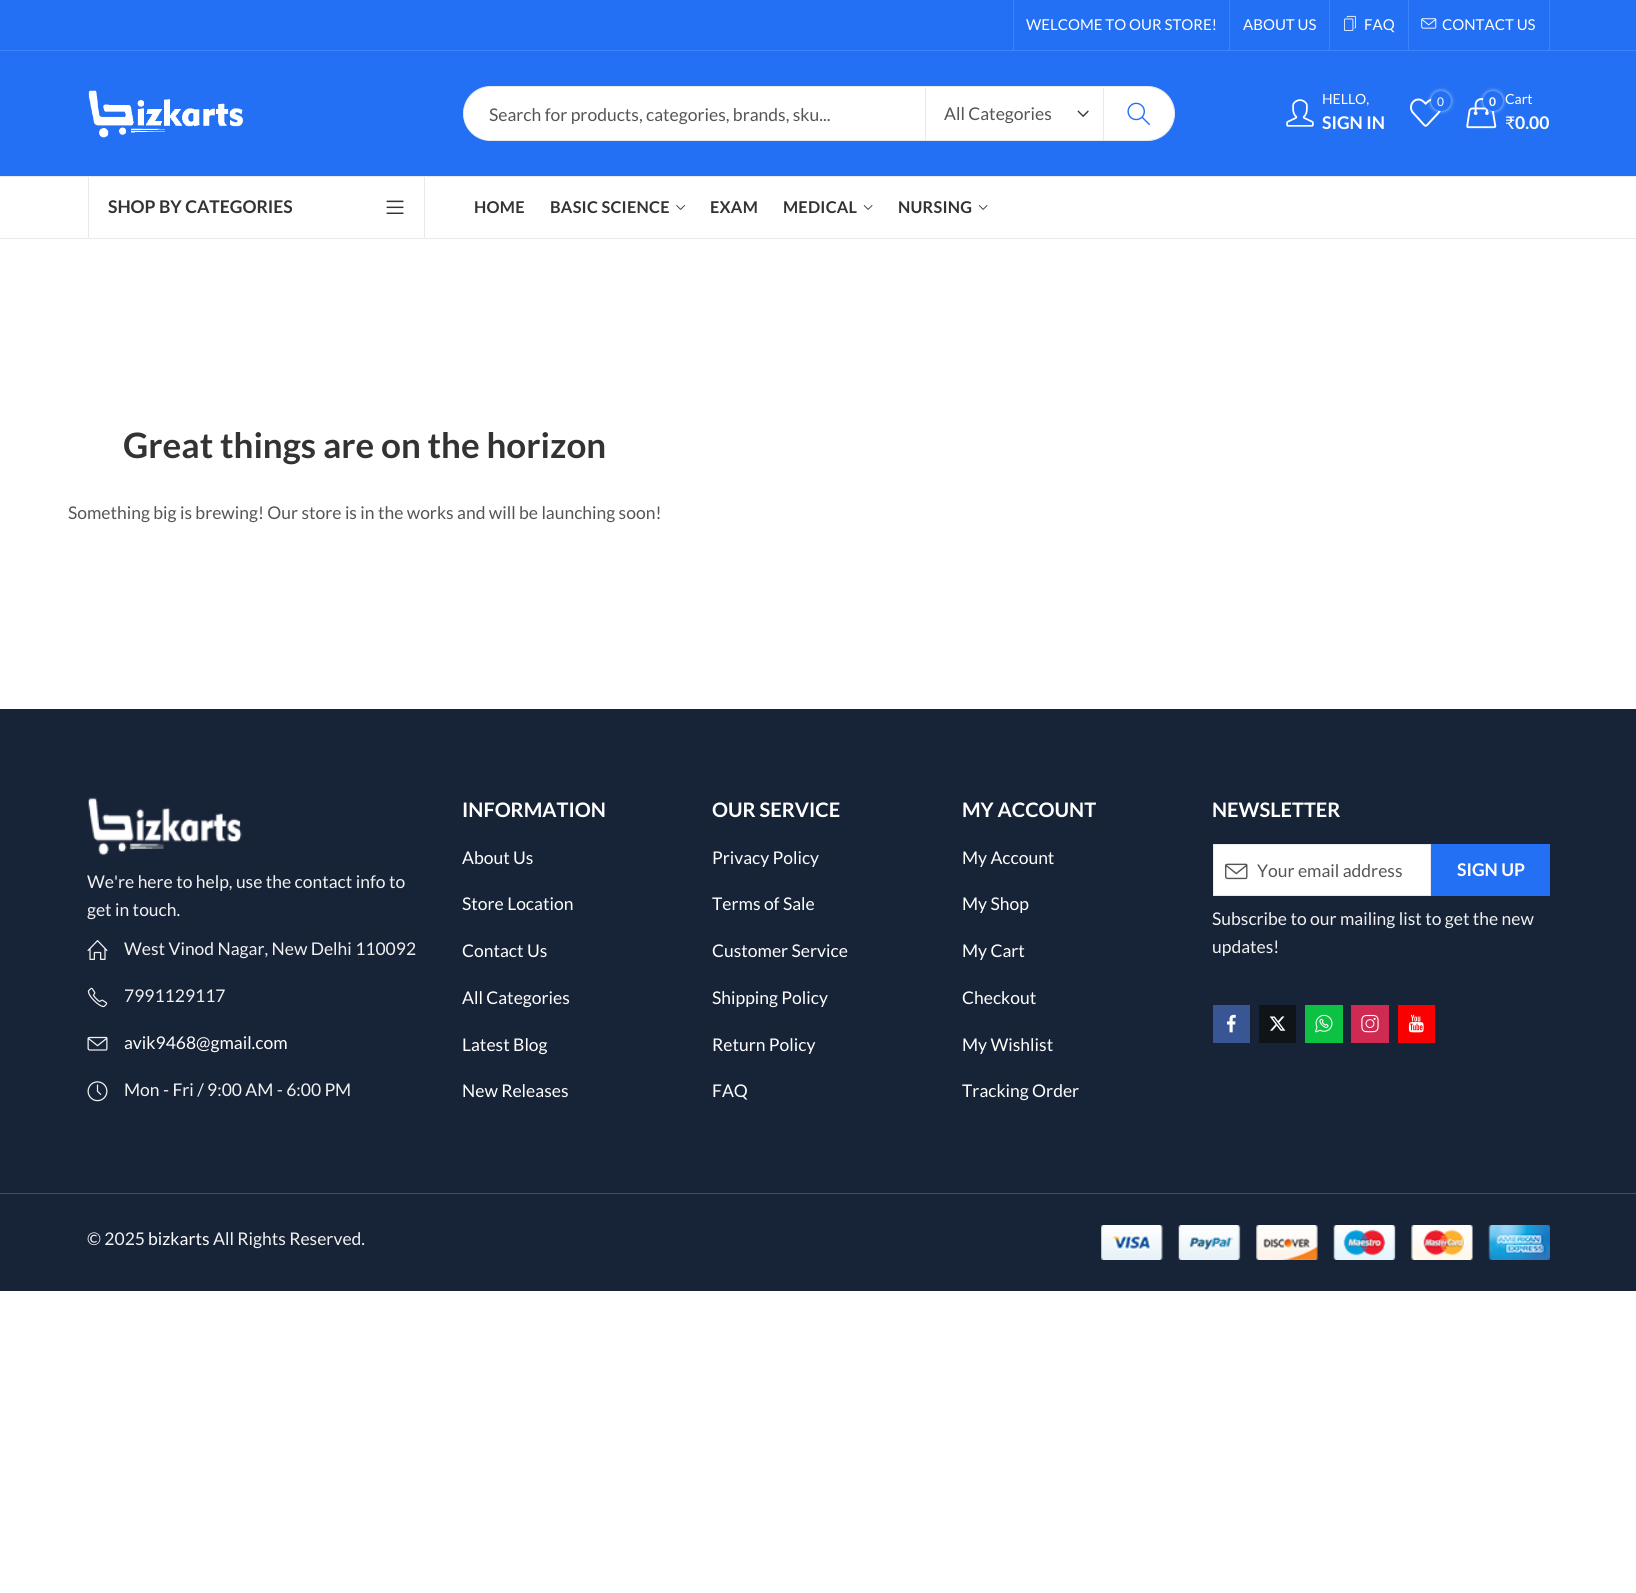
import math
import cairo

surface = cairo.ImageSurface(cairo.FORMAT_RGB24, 1636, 1593)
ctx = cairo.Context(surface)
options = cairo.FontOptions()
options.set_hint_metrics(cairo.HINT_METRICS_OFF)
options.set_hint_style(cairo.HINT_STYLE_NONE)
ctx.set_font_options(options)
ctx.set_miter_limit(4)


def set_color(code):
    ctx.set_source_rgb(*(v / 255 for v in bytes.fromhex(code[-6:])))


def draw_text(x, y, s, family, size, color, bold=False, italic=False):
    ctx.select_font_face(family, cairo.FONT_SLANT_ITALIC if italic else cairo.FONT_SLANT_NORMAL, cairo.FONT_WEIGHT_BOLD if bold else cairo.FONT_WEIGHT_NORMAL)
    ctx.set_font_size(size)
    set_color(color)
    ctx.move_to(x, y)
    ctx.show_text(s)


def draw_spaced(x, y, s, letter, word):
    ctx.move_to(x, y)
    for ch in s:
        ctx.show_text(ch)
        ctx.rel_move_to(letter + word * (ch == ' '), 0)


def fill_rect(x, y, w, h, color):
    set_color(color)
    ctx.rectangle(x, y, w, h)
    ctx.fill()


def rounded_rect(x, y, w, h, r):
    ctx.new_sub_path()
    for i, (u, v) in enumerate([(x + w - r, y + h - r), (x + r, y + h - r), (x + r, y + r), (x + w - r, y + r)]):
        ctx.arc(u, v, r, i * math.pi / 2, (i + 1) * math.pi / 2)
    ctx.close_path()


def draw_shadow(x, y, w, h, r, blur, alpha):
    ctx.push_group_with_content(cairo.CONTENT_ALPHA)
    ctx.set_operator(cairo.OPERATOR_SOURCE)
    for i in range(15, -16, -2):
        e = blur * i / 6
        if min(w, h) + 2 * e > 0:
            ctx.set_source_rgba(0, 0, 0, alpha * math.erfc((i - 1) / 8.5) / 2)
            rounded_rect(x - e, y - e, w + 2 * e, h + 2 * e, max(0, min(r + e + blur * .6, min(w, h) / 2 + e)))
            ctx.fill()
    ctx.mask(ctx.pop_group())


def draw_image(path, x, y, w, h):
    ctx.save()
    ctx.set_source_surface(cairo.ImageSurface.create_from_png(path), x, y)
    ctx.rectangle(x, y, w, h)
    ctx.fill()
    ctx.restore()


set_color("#ffffff")
ctx.paint()
fill_rect(0, 0, 1636, 50, "#2370f4")
fill_rect(0, 50, 1636, 1, "#3885fe")
fill_rect(1013, 0, 1, 50, "#3885fe")
draw_text(1026, 30, "WELCOME TO OUR STORE!", "Lato", 15, "#ffffff")
fill_rect(1549, 0, 1, 50, "#3885fe")
fill_rect(1229, 0, 1, 50, "#3885fe")
draw_text(1243, 30, "ABOUT US", "Lato", 15, "#ffffff")
fill_rect(1329, 0, 1, 50, "#3885fe")
draw_image("assets/img1.png", 1344, 15, 12, 16)
draw_text(1364, 30, "FAQ", "Lato", 15, "#ffffff")
fill_rect(1408, 0, 1, 50, "#3885fe")
draw_image("assets/img2.png", 1421, 18, 16, 11)
draw_text(1442, 30, "CONTACT US", "Lato", 15, "#ffffff")
fill_rect(0, 51, 1636, 125, "#2370f4")
draw_image("assets/img3.png", 88, 90, 156, 49)
set_color("#ffffff")
rounded_rect(463.5, 86.5, 711, 54, 27)
ctx.fill_preserve()
set_color("#e9e9e9")
ctx.set_line_width(1)
ctx.stroke()
set_color("#ffffff")
ctx.new_path()
ctx.move_to(490, 88)
ctx.line_to(926, 88)
ctx.line_to(926, 140)
ctx.line_to(490, 140)
ctx.curve_to(475.5, 140, 464, 128.5, 464, 114)
ctx.curve_to(464, 99.5, 475.5, 88, 490, 88)
ctx.close_path()
ctx.fill()
fill_rect(925, 88, 1, 52, "#e9e9e9")
draw_text(489, 121, "Search for products, categories, brands, sku...", "Lato", 17.5, "#555555")
draw_image("assets/img4.png", 1077, 110, 12, 8)
fill_rect(1103, 88, 1, 52, "#e9e9e9")
draw_text(944, 120, "All Categories", "Lato", 17.5, "#555555")
draw_image("assets/img5.png", 1127, 102, 23, 24)
draw_image("assets/img6.png", 1286, 99, 28, 28)
draw_text(1322, 104, "HELLO,", "Lato", 14, "#ffffff")
draw_text(1322, 129, "SIGN IN", "Lato", 17.5, "#ffffff", bold=True)
draw_image("assets/img7.png", 1410, 98, 31, 29)
set_color("#ffffff")
draw_shadow(1431, 91, 20, 20, 10, 2, 0.7)
set_color("#2370f4")
ctx.arc(1441, 101, 10, 0, 2 * math.pi)
ctx.fill()
draw_text(1437, 106, "0", "Lato", 12, "#ffffff")
draw_image("assets/img8.png", 1466, 98, 31, 31)
set_color("#ffffff")
draw_shadow(1483, 91, 20, 20, 10, 2, 0.7)
set_color("#2370f4")
ctx.arc(1493, 101, 10, 0, 2 * math.pi)
ctx.fill()
draw_text(1489, 106, "0", "Lato", 12, "#ffffff", bold=True)
draw_text(1505, 104, "Cart", "Lato", 14, "#ffffff")
draw_text(1505, 129, "₹", "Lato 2", 17.5, "#ffffff")
draw_text(1515, 129, "0.00", "Lato", 17.5, "#ffffff", bold=True)
fill_rect(0, 176, 1636, 1, "#e9e9e9")
fill_rect(0, 238, 1636, 1, "#e9e9e9")
fill_rect(424, 176, 1, 63, "#e9e9e9")
fill_rect(88, 176, 1, 63, "#e9e9e9")
draw_text(108, 213, "SHOP BY CATEGORIES", "Lato", 17.5, "#333333", bold=True)
draw_image("assets/img9.png", 386, 200, 18, 14)
ctx.set_font_size(16.25)
draw_spaced(474, 213, "HOME", 0.25, 0)
draw_spaced(550, 213, "BASIC SCIENCE", 0.25, 0)
draw_image("assets/img10.png", 676, 205, 9, 5)
draw_spaced(710, 213, "EXAM", 0.25, 0)
draw_spaced(783, 213, "MEDICAL", 0.25, 0)
draw_image("assets/img11.png", 863, 205, 10, 5)
draw_spaced(898, 213, "NURSING", 0.25, 0)
draw_image("assets/img11.png", 978, 205, 10, 5)
draw_text(123, 458, "Great things are on the horizon", "Lato", 35, "#333333", bold=True)
draw_text(68, 519, "Something big is brewing! Our store is in the works and will be launching soon!", "Lato", 17.5, "#555555")
fill_rect(0, 709, 1636, 484, "#172337")
draw_image("assets/img12.png", 88, 797, 154, 59)
draw_text(87, 888, "We're here to help, use the contact info to", "Lato", 17.5, "#f1f1f1")
draw_text(87, 916, "get in touch.", "Lato", 17.5, "#f1f1f1")
draw_image("assets/img13.png", 87, 940, 21, 20)
draw_text(124, 955, "West Vinod Nagar, New Delhi 110092", "Lato", 17.5, "#f1f1f1")
draw_image("assets/img14.png", 87, 987, 21, 21)
draw_text(124, 1002, "7991129117", "Lato", 17.5, "#f1f1f1")
draw_image("assets/img15.png", 87, 1036, 21, 15)
draw_text(124, 1049, "avik9468@gmail.com", "Lato", 17.5, "#ffffff")
draw_image("assets/img16.png", 87, 1081, 21, 21)
draw_text(124, 1096, "Mon - Fri / 9:00 AM - 6:00 PM", "Lato", 17.5, "#f1f1f1")
draw_text(462, 817, "INFORMATION", "Lato", 20, "#ffffff", bold=True)
draw_text(462, 864, "About Us", "Lato", 17.5, "#ffffff")
draw_text(462, 910, "Store Location", "Lato", 17.5, "#ffffff")
draw_text(462, 957, "Contact Us", "Lato", 17.5, "#ffffff")
draw_text(462, 1004, "All Categories", "Lato", 17.5, "#ffffff")
draw_text(462, 1051, "Latest Blog", "Lato", 17.5, "#ffffff")
draw_text(462, 1097, "New Releases", "Lato", 17.5, "#ffffff")
draw_text(712, 817, "OUR SERVICE", "Lato", 20, "#ffffff", bold=True)
draw_text(712, 864, "Privacy Policy", "Lato", 17.5, "#ffffff")
draw_text(712, 910, "Terms of Sale", "Lato", 17.5, "#ffffff")
draw_text(712, 957, "Customer Service", "Lato", 17.5, "#ffffff")
draw_text(712, 1004, "Shipping Policy", "Lato", 17.5, "#ffffff")
draw_text(712, 1051, "Return Policy", "Lato", 17.5, "#ffffff")
draw_text(712, 1097, "FAQ", "Lato", 17.5, "#ffffff")
draw_text(962, 817, "MY ACCOUNT", "Lato", 20, "#ffffff", bold=True)
draw_text(962, 864, "My Account", "Lato", 17.5, "#ffffff")
draw_text(962, 910, "My Shop", "Lato", 17.5, "#ffffff")
draw_text(962, 957, "My Cart", "Lato", 17.5, "#ffffff")
draw_text(962, 1004, "Checkout", "Lato", 17.5, "#ffffff")
draw_text(962, 1051, "My Wishlist", "Lato", 17.5, "#ffffff")
draw_text(962, 1097, "Tracking Order", "Lato", 17.5, "#ffffff")
draw_text(1212, 817, "NEWSLETTER", "Lato", 20, "#ffffff", bold=True)
ctx.rectangle(1213.5, 844.5, 217, 51)
ctx.fill_preserve()
set_color("#e9e9e9")
ctx.stroke()
draw_image("assets/img17.png", 1225, 863, 23, 17)
draw_text(1257, 877, "Your email address", "Lato", 17.5, "#555555")
fill_rect(1431, 844, 119, 52, "#2370f4")
draw_text(1457, 876, "SIGN UP", "Lato", 17.5, "#ffffff", bold=True)
draw_text(1212, 925, "Subscribe to our mailing list to get the new", "Lato", 17.5, "#f1f1f1")
draw_text(1212, 953, "updates!", "Lato", 17.5, "#f1f1f1")
fill_rect(1213, 1005, 37, 38, "#385693")
draw_image("assets/img18.png", 1227, 1014, 9, 19)
fill_rect(1259, 1005, 37, 38, "#0f1419")
draw_image("assets/img19.png", 1269, 1016, 17, 15)
fill_rect(1305, 1005, 38, 38, "#0dc143")
draw_image("assets/img20.png", 1315, 1014, 18, 19)
fill_rect(1351, 1005, 38, 38, "#d02a52")
draw_image("assets/img21.png", 1361, 1014, 18, 19)
fill_rect(1398, 1005, 37, 38, "#f90002")
draw_image("assets/img22.png", 1408, 1014, 16, 19)
fill_rect(0, 1194, 1636, 97, "#172337")
fill_rect(0, 1193, 1636, 1, "#454d5e")
draw_text(87, 1245, "© 2025", "Lato", 17.5, "#f1f1f1")
draw_text(148, 1245, "bizkarts", "Lato", 17.5, "#ffffff")
draw_text(213, 1245, "All Rights Reserved.", "Lato", 17.5, "#f1f1f1")
draw_image("assets/img23.png", 1101, 1225, 449, 35)
surface.write_to_png("output.png")
